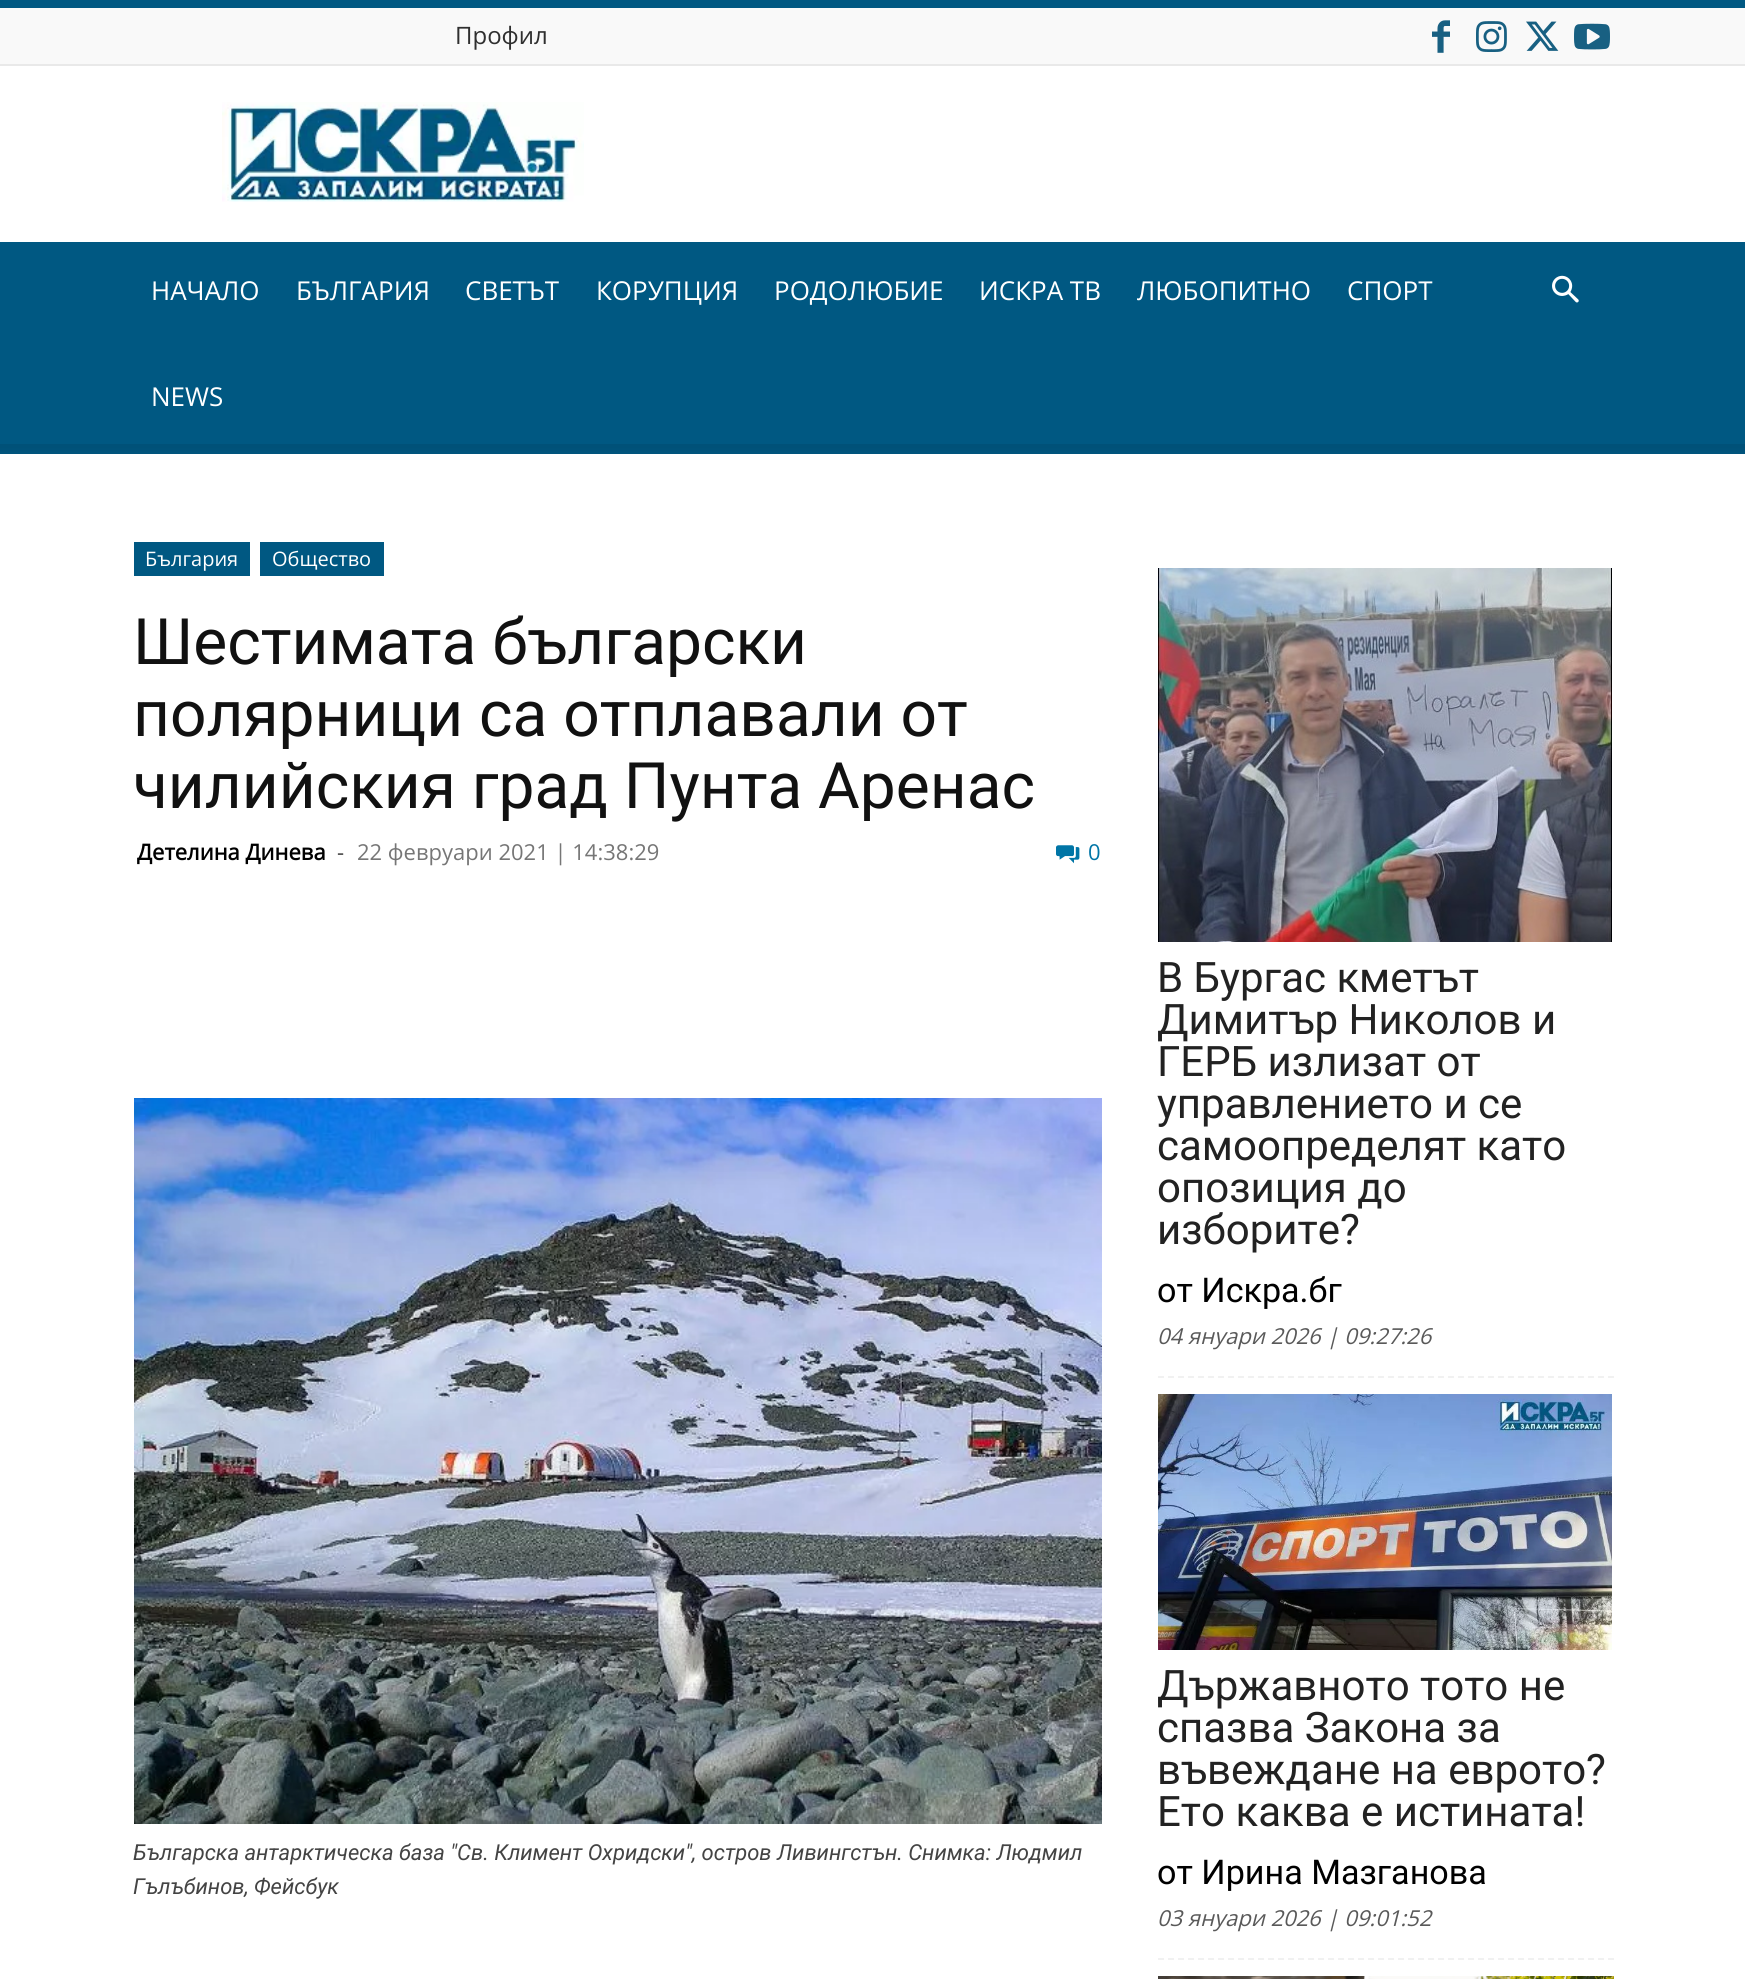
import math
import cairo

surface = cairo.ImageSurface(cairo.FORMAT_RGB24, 1745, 1979)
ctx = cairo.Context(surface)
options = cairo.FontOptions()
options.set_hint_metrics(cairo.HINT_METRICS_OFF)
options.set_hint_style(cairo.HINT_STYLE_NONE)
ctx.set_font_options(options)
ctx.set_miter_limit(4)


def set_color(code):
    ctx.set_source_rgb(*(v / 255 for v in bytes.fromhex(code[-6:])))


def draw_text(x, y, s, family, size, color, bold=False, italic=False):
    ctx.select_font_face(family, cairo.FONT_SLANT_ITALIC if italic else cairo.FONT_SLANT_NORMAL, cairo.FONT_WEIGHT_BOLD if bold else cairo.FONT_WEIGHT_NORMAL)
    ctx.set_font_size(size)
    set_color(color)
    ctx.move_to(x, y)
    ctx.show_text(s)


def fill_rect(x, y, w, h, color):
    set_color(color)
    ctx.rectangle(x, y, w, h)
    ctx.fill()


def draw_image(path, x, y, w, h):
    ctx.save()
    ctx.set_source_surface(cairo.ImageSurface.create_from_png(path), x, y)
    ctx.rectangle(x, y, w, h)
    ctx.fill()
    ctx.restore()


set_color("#ffffff")
ctx.paint()
fill_rect(0, 8, 1745, 56, "#f9f9f9")
fill_rect(0, 0, 1745, 8, "#005882")
fill_rect(0, 64, 1745, 2, "#e9e9e9")
draw_text(455, 44, "Профил", "Open Sans", 24, "#2f2f2f")
draw_image("assets/img1.png", 1432, 20, 18, 33)
draw_image("assets/img2.png", 1476, 21, 31, 31)
draw_image("assets/img3.png", 1526, 21, 33, 30)
draw_image("assets/img4.png", 1574, 23, 36, 27)
draw_image("assets/img5.png", 222, 102, 362, 100)
fill_rect(0, 242, 1745, 212, "#005882")
draw_text(151, 300, "НАЧАЛО", "Open Sans", 26, "#ffffff")
draw_text(296, 300, "БЪЛГАРИЯ", "Open Sans", 26, "#ffffff")
draw_text(465, 300, "СВЕТЪТ", "Open Sans", 26, "#ffffff")
draw_text(596, 300, "КОРУПЦИЯ", "Open Sans", 26, "#ffffff")
draw_text(774, 300, "РОДОЛЮБИЕ", "Open Sans", 26, "#ffffff")
draw_text(979, 300, "ИСКРА ТВ", "Open Sans", 26, "#ffffff")
draw_text(1137, 300, "ЛЮБОПИТНО", "Open Sans", 26, "#ffffff")
draw_text(1347, 300, "СПОРТ", "Open Sans", 26, "#ffffff")
draw_text(151, 406, "NEWS", "Open Sans", 26, "#ffffff")
draw_image("assets/img6.png", 1552, 275, 27, 28)
draw_image("assets/img7.png", 0, 444, 1745, 10)
fill_rect(134, 542, 116, 34, "#005882")
draw_text(145, 566, "България", "Open Sans", 20, "#ffffff")
fill_rect(260, 542, 124, 34, "#005882")
draw_text(272, 566, "Общество", "Open Sans", 20, "#ffffff")
draw_text(133, 664, "Шестимата български", "Roboto", 64, "#111111")
draw_text(133, 736, "полярници са отплавали от", "Roboto", 64, "#111111")
draw_text(133, 808, "чилийския град Пунта Аренас", "Roboto", 64, "#111111")
draw_text(137, 860, "Детелина Динева", "Open Sans", 22, "#000000", bold=True)
draw_text(337, 860, "-", "Open Sans", 22, "#444444")
draw_text(357, 860, "22 февруари 2021 | 14:38:29", "Open Sans", 22, "#767676")
draw_image("assets/img8.png", 1056, 845, 24, 19)
draw_text(1088, 860, "0", "Open Sans", 22, "#0075a6")
draw_image("assets/img9.png", 134, 1098, 968, 726)
draw_text(133, 1860, "Българска антарктическа база \"Св. Климент Охридски\", остров Ливингстън. Снимка: Людмил", "Roboto", 22, "#444444", italic=True)
draw_text(133, 1894, "Гълъбинов, Фейсбук", "Roboto", 22, "#444444", italic=True)
ctx.new_path()
ctx.move_to(1158, 1377)
ctx.line_to(1614, 1377)
set_color("#f1f1f1")
ctx.set_dash([6, 4])
ctx.stroke()
draw_image("assets/img10.png", 1158, 568, 454, 374)
draw_text(1157, 992, "В Бургас кметът", "Roboto", 42, "#222222")
draw_text(1157, 1034, "Димитър Николов и", "Roboto", 42, "#222222")
draw_text(1157, 1076, "ГЕРБ излизат от", "Roboto", 42, "#222222")
draw_text(1157, 1118, "управлението и се", "Roboto", 42, "#222222")
draw_text(1157, 1160, "самоопределят като", "Roboto", 42, "#222222")
draw_text(1157, 1202, "опозиция до", "Roboto", 42, "#222222")
draw_text(1157, 1244, "изборите?", "Roboto", 42, "#222222")
draw_text(1157, 1302, "от Искра.бг", "Roboto", 34.1, "#000000")
draw_text(1157, 1344, "04 януари 2026 | 09:27:26", "Open Sans", 22, "#595959", italic=True)
ctx.new_path()
ctx.move_to(1158, 1959)
ctx.line_to(1614, 1959)
set_color("#f1f1f1")
ctx.stroke()
draw_image("assets/img11.png", 1158, 1394, 454, 256)
draw_text(1157, 1700, "Държавното тото не", "Roboto", 42, "#222222")
draw_text(1157, 1742, "спазва Закона за", "Roboto", 42, "#222222")
draw_text(1157, 1784, "въвеждане на еврото?", "Roboto", 42, "#222222")
draw_text(1157, 1826, "Ето каква е истината!", "Roboto", 42, "#222222")
draw_text(1157, 1884, "от Ирина Мазганова", "Roboto", 34.1, "#000000")
draw_text(1157, 1926, "03 януари 2026 | 09:01:52", "Open Sans", 22, "#595959", italic=True)
draw_image("assets/img12.png", 1158, 1976, 456, 3)
surface.write_to_png("output.png")
